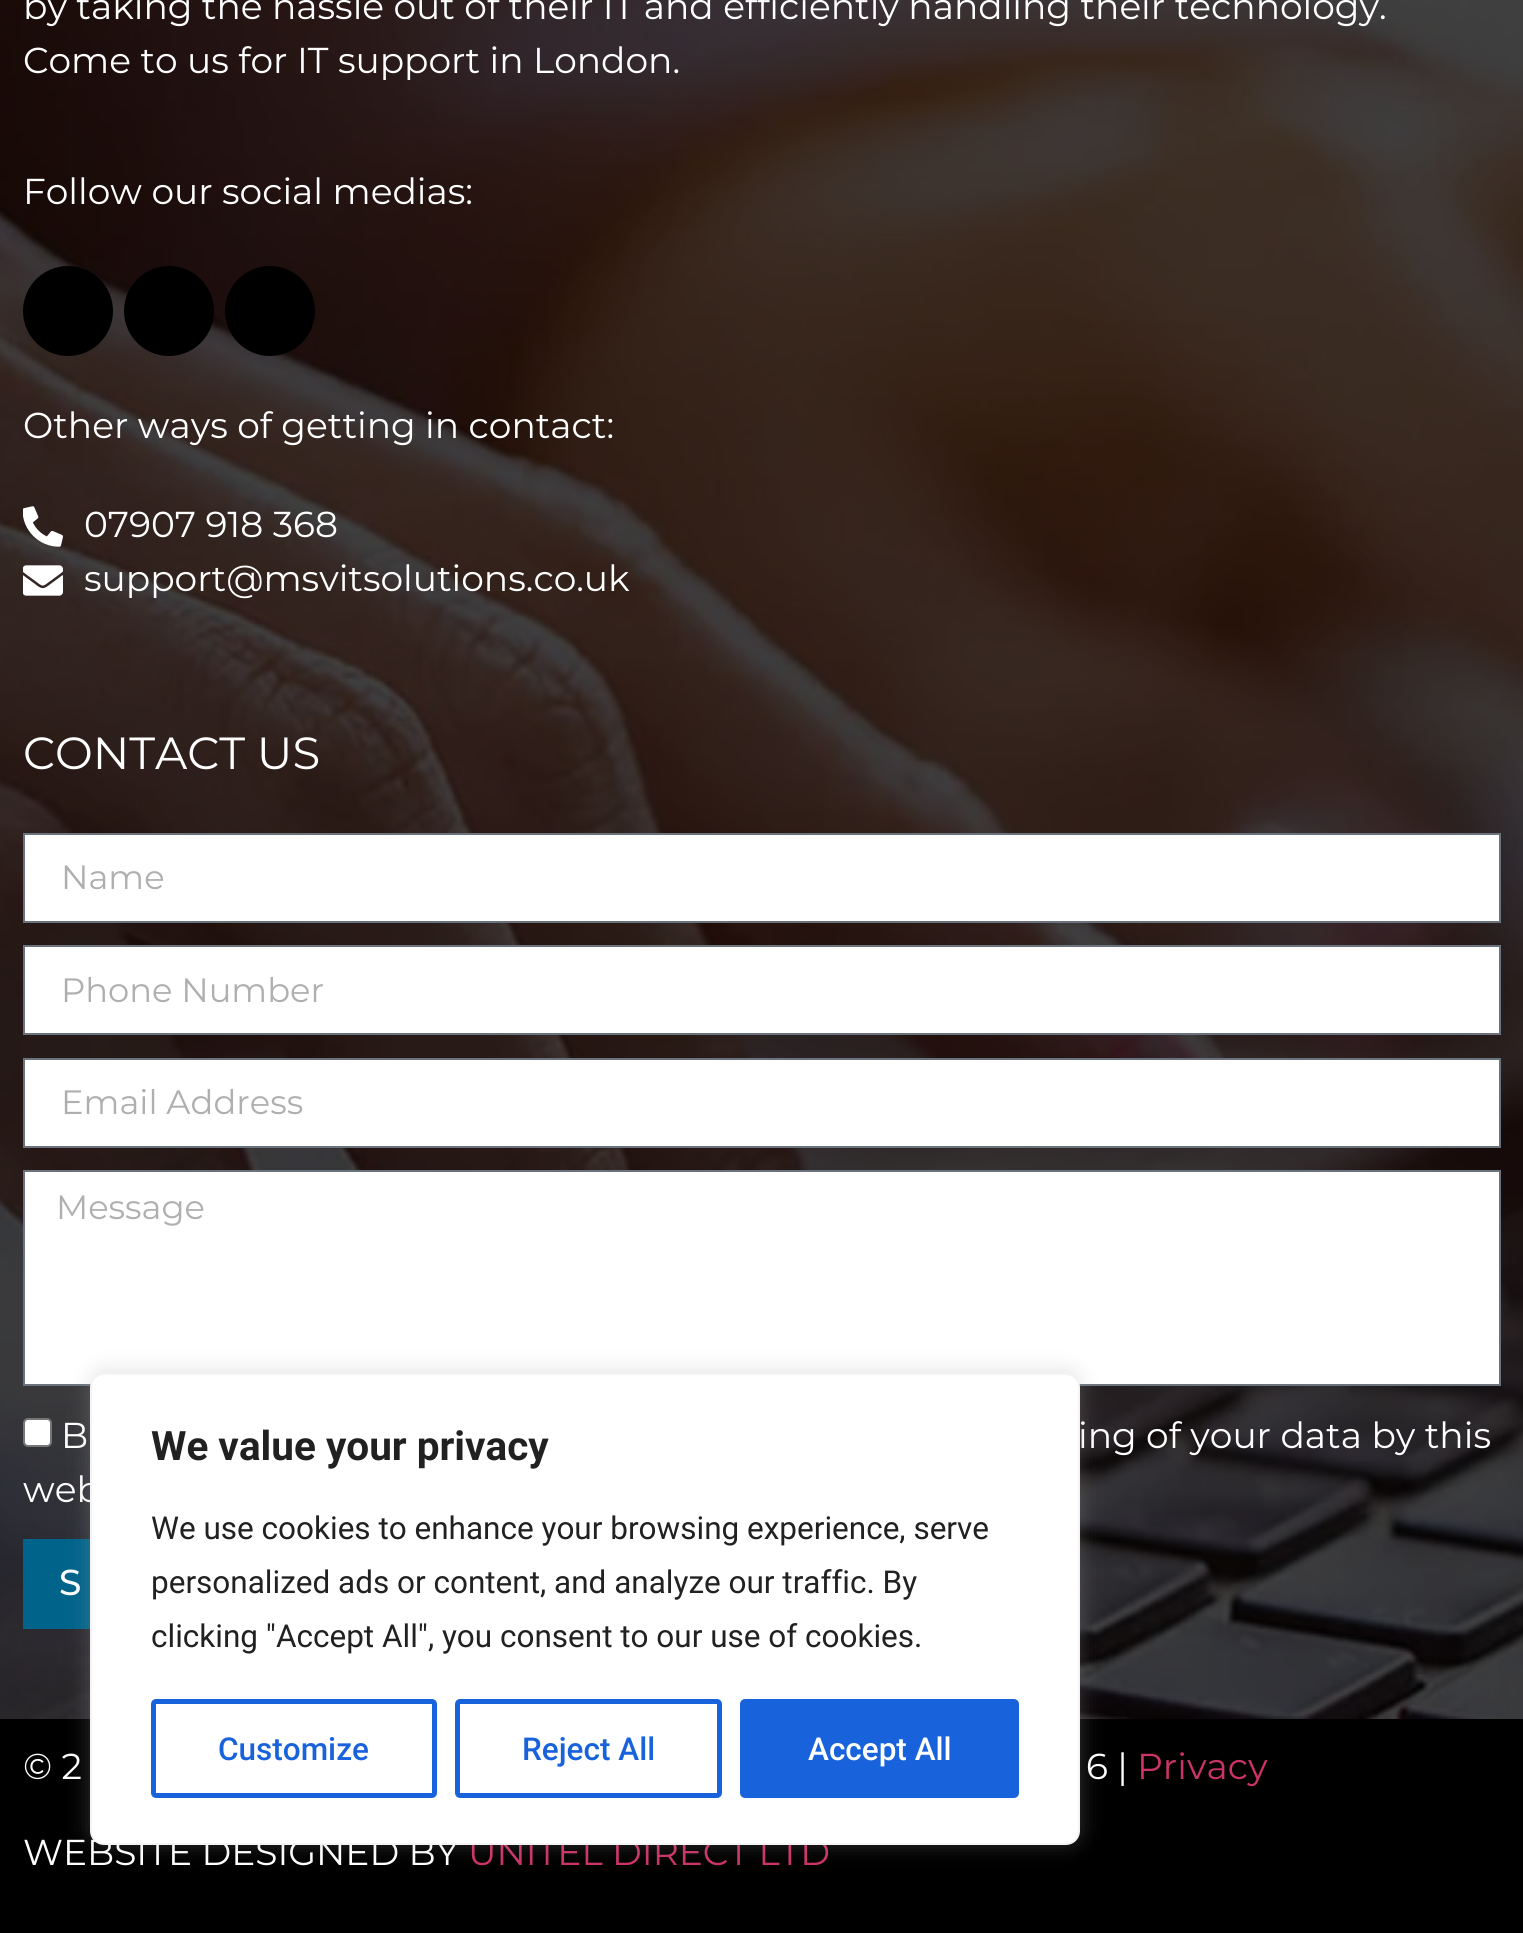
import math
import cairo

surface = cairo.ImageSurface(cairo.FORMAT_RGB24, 1523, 1933)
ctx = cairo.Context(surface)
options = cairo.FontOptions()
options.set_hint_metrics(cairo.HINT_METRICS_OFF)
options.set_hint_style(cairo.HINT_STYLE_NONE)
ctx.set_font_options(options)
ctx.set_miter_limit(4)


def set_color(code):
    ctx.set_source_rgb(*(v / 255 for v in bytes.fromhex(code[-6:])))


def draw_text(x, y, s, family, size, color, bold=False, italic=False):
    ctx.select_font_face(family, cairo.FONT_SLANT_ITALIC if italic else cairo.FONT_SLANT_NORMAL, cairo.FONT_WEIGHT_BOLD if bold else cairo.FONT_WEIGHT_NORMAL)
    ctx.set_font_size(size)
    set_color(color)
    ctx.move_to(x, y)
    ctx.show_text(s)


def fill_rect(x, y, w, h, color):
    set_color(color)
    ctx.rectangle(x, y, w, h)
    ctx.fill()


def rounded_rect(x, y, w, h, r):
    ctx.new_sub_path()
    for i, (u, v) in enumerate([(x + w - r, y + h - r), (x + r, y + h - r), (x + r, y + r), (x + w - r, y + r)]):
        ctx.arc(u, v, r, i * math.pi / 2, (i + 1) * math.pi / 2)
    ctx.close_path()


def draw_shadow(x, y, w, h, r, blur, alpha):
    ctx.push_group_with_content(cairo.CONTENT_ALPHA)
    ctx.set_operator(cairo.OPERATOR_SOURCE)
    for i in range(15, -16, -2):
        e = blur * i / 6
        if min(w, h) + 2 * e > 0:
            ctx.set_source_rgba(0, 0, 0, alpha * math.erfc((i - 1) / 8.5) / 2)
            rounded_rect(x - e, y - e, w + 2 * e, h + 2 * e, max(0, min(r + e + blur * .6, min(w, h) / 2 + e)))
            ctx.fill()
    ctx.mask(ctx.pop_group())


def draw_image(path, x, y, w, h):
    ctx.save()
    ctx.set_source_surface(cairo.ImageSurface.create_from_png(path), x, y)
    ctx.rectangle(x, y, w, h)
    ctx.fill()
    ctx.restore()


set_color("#ffffff")
ctx.paint()
draw_image("assets/img1.png", 0, 0, 1523, 1719)
draw_text(23, 19, "by taking the hassle out of their IT and efficiently handling their technology.", "Montserrat", 36, "#ffffff")
draw_text(23, 73, "Come to us for IT support in London.", "Montserrat", 36, "#ffffff")
draw_text(23, 204, "Follow our social medias:", "Montserrat", 36, "#ffffff")
set_color("#000000")
ctx.new_path()
ctx.arc(68, 311, 45, 0, 2 * math.pi)
ctx.fill()
ctx.arc(169, 311, 45, 0, 2 * math.pi)
ctx.fill()
ctx.arc(270, 311, 45, 0, 2 * math.pi)
ctx.fill()
draw_text(23, 438, "Other ways of getting in contact:", "Montserrat", 36, "#ffffff")
draw_image("assets/img2.png", 23, 506, 40, 41)
draw_text(84, 537, "07907 918 368", "Montserrat", 36, "#ffffff")
draw_image("assets/img3.png", 23, 565, 40, 31)
draw_text(84, 591, "support@msvitsolutions.co.uk", "Montserrat", 36, "#ffffff")
draw_text(23, 769, "CONTACT US", "Montserrat", 45, "#ffffff")
ctx.rectangle(24, 834, 1476, 88)
ctx.fill_preserve()
set_color("#69727d")
ctx.stroke()
draw_text(61, 889, "Name", "Montserrat", 33.75, "#afafaf")
set_color("#ffffff")
ctx.rectangle(24, 946, 1476, 88)
ctx.fill_preserve()
set_color("#69727d")
ctx.stroke()
draw_text(61, 1002, "Phone Number", "Montserrat", 33.75, "#afafaf")
set_color("#ffffff")
ctx.rectangle(24, 1059, 1476, 88)
ctx.fill_preserve()
set_color("#69727d")
ctx.stroke()
draw_text(61, 1114, "Email Address", "Montserrat", 33.75, "#afafaf")
set_color("#ffffff")
ctx.rectangle(24, 1171, 1476, 214)
ctx.fill_preserve()
set_color("#69727d")
ctx.stroke()
draw_text(56, 1219, "Message", "Montserrat", 33.75, "#afafaf")
set_color("#ffffff")
rounded_rect(24, 1419, 27, 27, 4)
ctx.fill_preserve()
set_color("#767676")
ctx.stroke()
draw_text(61, 1448, "B", "Montserrat", 36, "#ffffff")
draw_text(1078, 1448, "ing of your data by this", "Montserrat", 36, "#ffffff")
draw_text(23, 1502, "web", "Montserrat", 36, "#ffffff")
fill_rect(23, 1539, 67, 90, "#00638a")
draw_text(59, 1595, "S", "Montserrat Medium", 36, "#ffffff")
fill_rect(0, 1719, 1523, 214, "#000000")
draw_text(23, 1779, "© 2", "Montserrat", 36, "#ffffff")
draw_text(1086, 1779, "6 |", "Montserrat", 36, "#ffffff")
draw_text(1137, 1779, "Privacy", "Montserrat", 36, "#cc3366")
draw_text(23, 1865, "WEBSITE DESIGNED BY", "Montserrat", 36, "#ffffff")
draw_text(468, 1865, "UNITEL DIRECT LTD", "Montserrat", 36, "#cc3366")
set_color("#acabab")
draw_shadow(90, 1370, 990, 473, 14, 11, 0.3)
set_color("#ffffff")
rounded_rect(91, 1374, 988, 470, 13)
ctx.fill_preserve()
set_color("#f4f4f4")
ctx.stroke()
draw_text(151, 1460, "We value your privacy", "Roboto", 40.5, "#212121", bold=True)
draw_text(151, 1539, "We use cookies to enhance your browsing experience, serve", "Roboto", 31.5, "#212121")
draw_text(151, 1593, "personalized ads or content, and analyze our traffic. By", "Roboto", 31.5, "#212121")
draw_text(151, 1647, "clicking \"Accept All\", you consent to our use of cookies.", "Roboto", 31.5, "#212121")
rounded_rect(153.5, 1701.5, 281, 94, 2.5)
set_color("#1863dc")
ctx.set_line_width(5)
ctx.stroke()
draw_text(218, 1760, "Customize", "Roboto Medium", 31.5, "#1863dc")
rounded_rect(457.5, 1701.5, 262, 94, 2.5)
ctx.stroke()
draw_text(522, 1760, "Reject All", "Roboto Medium", 31.5, "#1863dc")
rounded_rect(742.5, 1701.5, 274, 94, 2.5)
ctx.fill_preserve()
ctx.stroke()
draw_text(808, 1760, "Accept All", "Roboto Medium", 31.5, "#ffffff")
surface.write_to_png("output.png")
